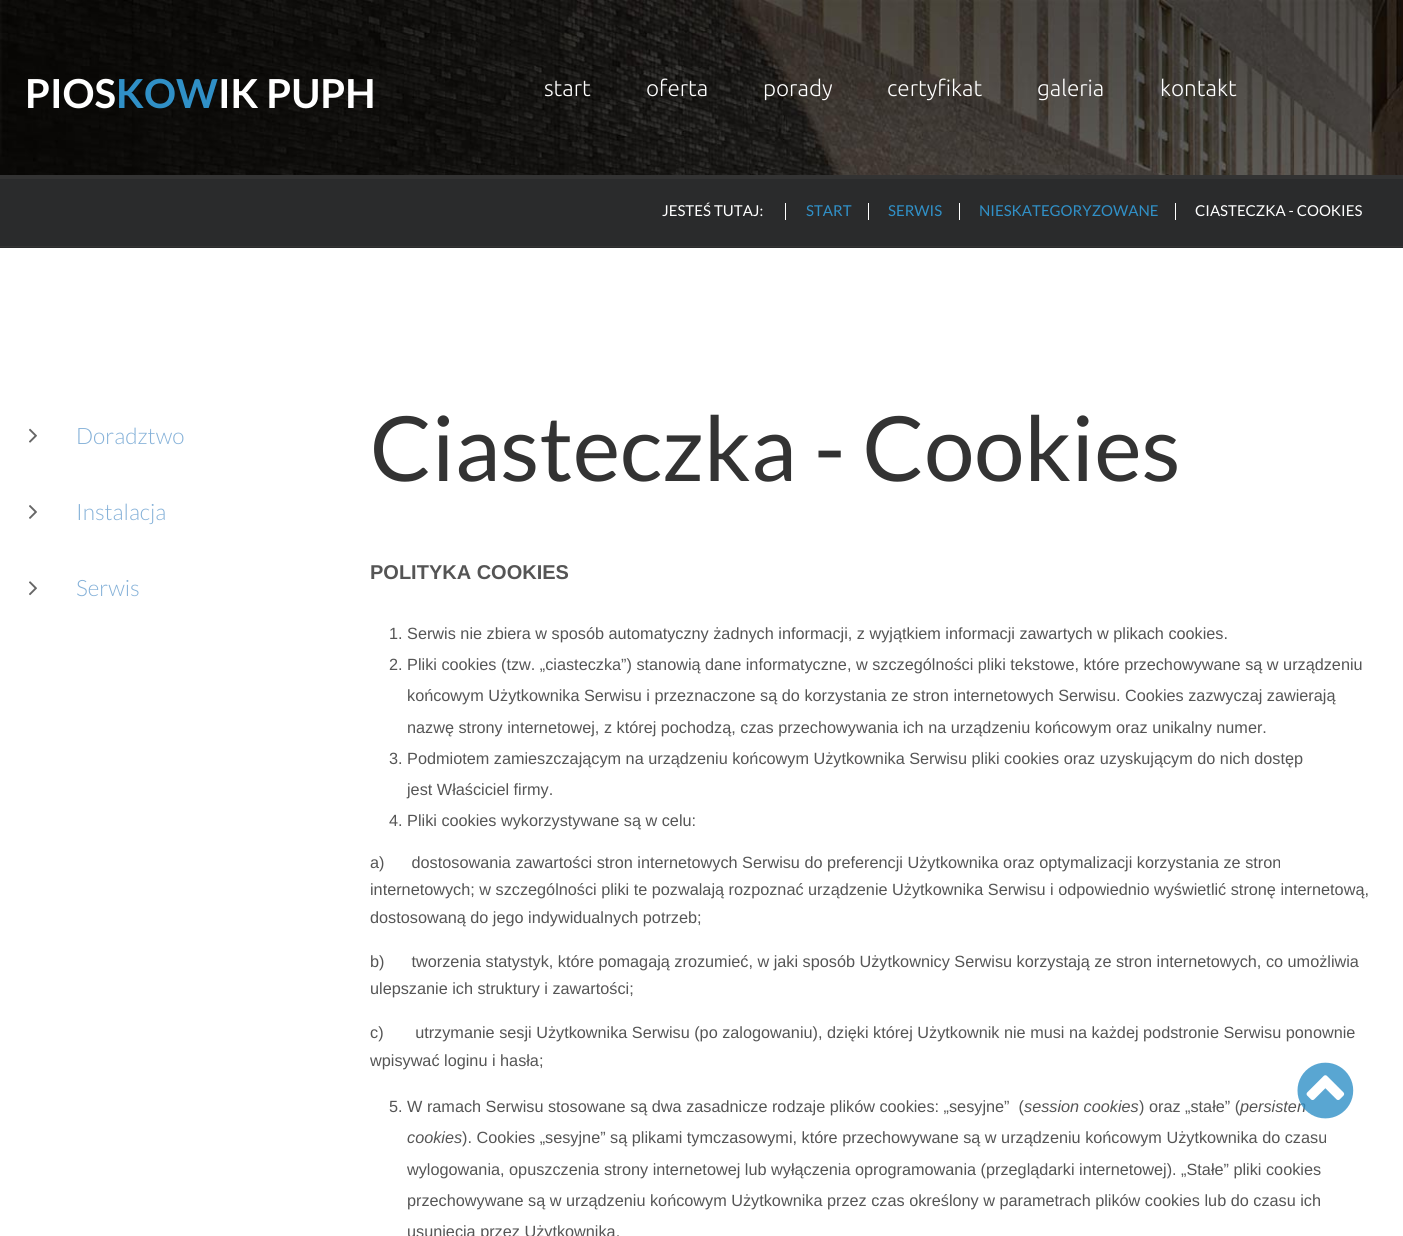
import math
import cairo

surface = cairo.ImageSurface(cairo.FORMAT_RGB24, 1403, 1236)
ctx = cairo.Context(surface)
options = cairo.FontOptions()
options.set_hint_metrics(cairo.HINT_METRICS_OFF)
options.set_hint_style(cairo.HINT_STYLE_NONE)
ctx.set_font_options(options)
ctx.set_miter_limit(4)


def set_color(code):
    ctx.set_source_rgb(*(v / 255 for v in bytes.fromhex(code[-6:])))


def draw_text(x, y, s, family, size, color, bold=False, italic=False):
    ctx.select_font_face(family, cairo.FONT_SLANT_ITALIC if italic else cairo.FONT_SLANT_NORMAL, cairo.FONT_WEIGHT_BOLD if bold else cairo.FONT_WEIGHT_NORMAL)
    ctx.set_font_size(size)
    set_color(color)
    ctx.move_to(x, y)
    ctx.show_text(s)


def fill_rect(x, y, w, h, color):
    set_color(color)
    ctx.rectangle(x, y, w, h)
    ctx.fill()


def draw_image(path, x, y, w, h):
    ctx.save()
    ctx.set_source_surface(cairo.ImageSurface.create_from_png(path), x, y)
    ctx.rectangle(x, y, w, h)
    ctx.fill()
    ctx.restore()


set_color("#ffffff")
ctx.paint()
draw_image("assets/img1.png", 0, 0, 1403, 175)
draw_text(25, 108, "PIOS", "Lato", 40, "#ffffff", bold=True)
draw_text(116, 108, "KOW", "Lato", 40, "#3090c7", bold=True)
draw_text(218, 108, "IK PUPH", "Lato", 40, "#ffffff", bold=True)
draw_text(544, 96, "start", "Ubuntu Light", 22.5, "#ffffff")
draw_text(646, 96, "oferta", "Ubuntu Light", 22.5, "#ffffff")
draw_text(763, 96, "porady", "Ubuntu Light", 22.5, "#ffffff")
draw_text(887, 96, "certyfikat", "Ubuntu Light", 22.5, "#ffffff")
draw_text(1037, 96, "galeria", "Ubuntu Light", 22.5, "#ffffff")
draw_text(1160, 96, "kontakt", "Ubuntu Light", 22.5, "#ffffff")
fill_rect(0, 179, 1403, 69, "#2a2b2c")
fill_rect(0, 175, 1403, 4, "#333333")
fill_rect(0, 246, 1403, 1, "#333333")
fill_rect(785, 203, 1, 17, "#ffffff")
draw_text(662, 216, "JESTEŚ TUTAJ:", "Lato", 15, "#ffffff")
fill_rect(868, 203, 1, 17, "#ffffff")
draw_text(806, 216, "START", "Lato", 15, "#3090c7")
fill_rect(959, 203, 1, 17, "#ffffff")
draw_text(888, 216, "SERWIS", "Lato", 15, "#3090c7")
fill_rect(1175, 203, 1, 17, "#ffffff")
draw_text(979, 216, "NIESKATEGORYZOWANE", "Lato", 15, "#3090c7")
draw_text(1195, 216, "CIASTECZKA - COOKIES", "Lato", 15, "#ffffff")
draw_image("assets/img2.png", 29, 428, 8, 15)
draw_text(76, 444, "Doradztwo", "Lato Light", 22.5, "#85b1d8")
draw_image("assets/img3.png", 29, 505, 8, 14)
draw_text(76, 520, "Instalacja", "Lato Light", 22.5, "#85b1d8")
draw_image("assets/img4.png", 29, 581, 8, 15)
draw_text(76, 596, "Serwis", "Lato Light", 22.5, "#85b1d8")
draw_text(370, 481, "Ciasteczka - Cookies", "Lato", 90, "#333333")
draw_text(370, 579, "POLITYKA COOKIES", "Liberation Sans", 20, "#555555", bold=True)
draw_text(389, 639, "1. Serwis nie zbiera w sposób automatyczny żadnych informacji, z wyjątkiem informacji zawartych w plikach cookies.", "Liberation Sans", 16.25, "#555555")
draw_text(389, 670, "2. Pliki cookies (tzw. „ciasteczka”) stanowią dane informatyczne, w szczególności pliki tekstowe, które przechowywane są w urządzeniu", "Liberation Sans", 16.25, "#555555")
draw_text(407, 701, "końcowym Użytkownika Serwisu i przeznaczone są do korzystania ze stron internetowych Serwisu. Cookies zazwyczaj zawierają", "Liberation Sans", 16.25, "#555555")
draw_text(407, 733, "nazwę strony internetowej, z której pochodzą, czas przechowywania ich na urządzeniu końcowym oraz unikalny numer.", "Liberation Sans", 16.25, "#555555")
draw_text(389, 764, "3. Podmiotem zamieszczającym na urządzeniu końcowym Użytkownika Serwisu pliki cookies oraz uzyskującym do nich dostęp", "Liberation Sans", 16.25, "#555555")
draw_text(407, 795, "jest Właściciel firmy.", "Liberation Sans", 16.25, "#555555")
draw_text(389, 826, "4. Pliki cookies wykorzystywane są w celu:", "Liberation Sans", 16.25, "#555555")
draw_text(370, 868, "a)      dostosowania zawartości stron internetowych Serwisu do preferencji Użytkownika oraz optymalizacji korzystania ze stron", "Liberation Sans", 16.25, "#555555")
draw_text(370, 895, "internetowych; w szczególności pliki te pozwalają rozpoznać urządzenie Użytkownika Serwisu i odpowiednio wyświetlić stronę internetową,", "Liberation Sans", 16.25, "#555555")
draw_text(370, 923, "dostosowaną do jego indywidualnych potrzeb;", "Liberation Sans", 16.25, "#555555")
draw_text(370, 967, "b)      tworzenia statystyk, które pomagają zrozumieć, w jaki sposób Użytkownicy Serwisu korzystają ze stron internetowych, co umożliwia", "Liberation Sans", 16.25, "#555555")
draw_text(370, 994, "ulepszanie ich struktury i zawartości;", "Liberation Sans", 16.25, "#555555")
draw_text(370, 1038, "c)       utrzymanie sesji Użytkownika Serwisu (po zalogowaniu), dzięki której Użytkownik nie musi na każdej podstronie Serwisu ponownie", "Liberation Sans", 16.25, "#555555")
draw_text(370, 1066, "wpisywać loginu i hasła;", "Liberation Sans", 16.25, "#555555")
draw_text(389, 1112, "5. W ramach Serwisu stosowane są dwa zasadnicze rodzaje plików cookies: „sesyjne”  (", "Liberation Sans", 16.25, "#555555")
draw_text(1024, 1112, "session cookies", "Liberation Sans", 16.25, "#555555", italic=True)
draw_text(1139, 1112, ") oraz „stałe” (", "Liberation Sans", 16.25, "#555555")
draw_text(1240, 1112, "persisten", "Liberation Sans", 16.25, "#555555", italic=True)
draw_text(407, 1143, "cookies", "Liberation Sans", 16.25, "#555555", italic=True)
draw_text(462, 1143, "). Cookies „sesyjne” są plikami tymczasowymi, które przechowywane są w urządzeniu końcowym Użytkownika do czasu", "Liberation Sans", 16.25, "#555555")
draw_text(407, 1175, "wylogowania, opuszczenia strony internetowej lub wyłączenia oprogramowania (przeglądarki internetowej). „Stałe” pliki cookies", "Liberation Sans", 16.25, "#555555")
draw_text(407, 1206, "przechowywane są w urządzeniu końcowym Użytkownika przez czas określony w parametrach plików cookies lub do czasu ich", "Liberation Sans", 16.25, "#555555")
draw_text(407, 1237, "usunięcia przez Użytkownika.", "Liberation Sans", 16.25, "#555555")
draw_image("assets/img5.png", 1297, 1062, 57, 57)
surface.write_to_png("output.png")
